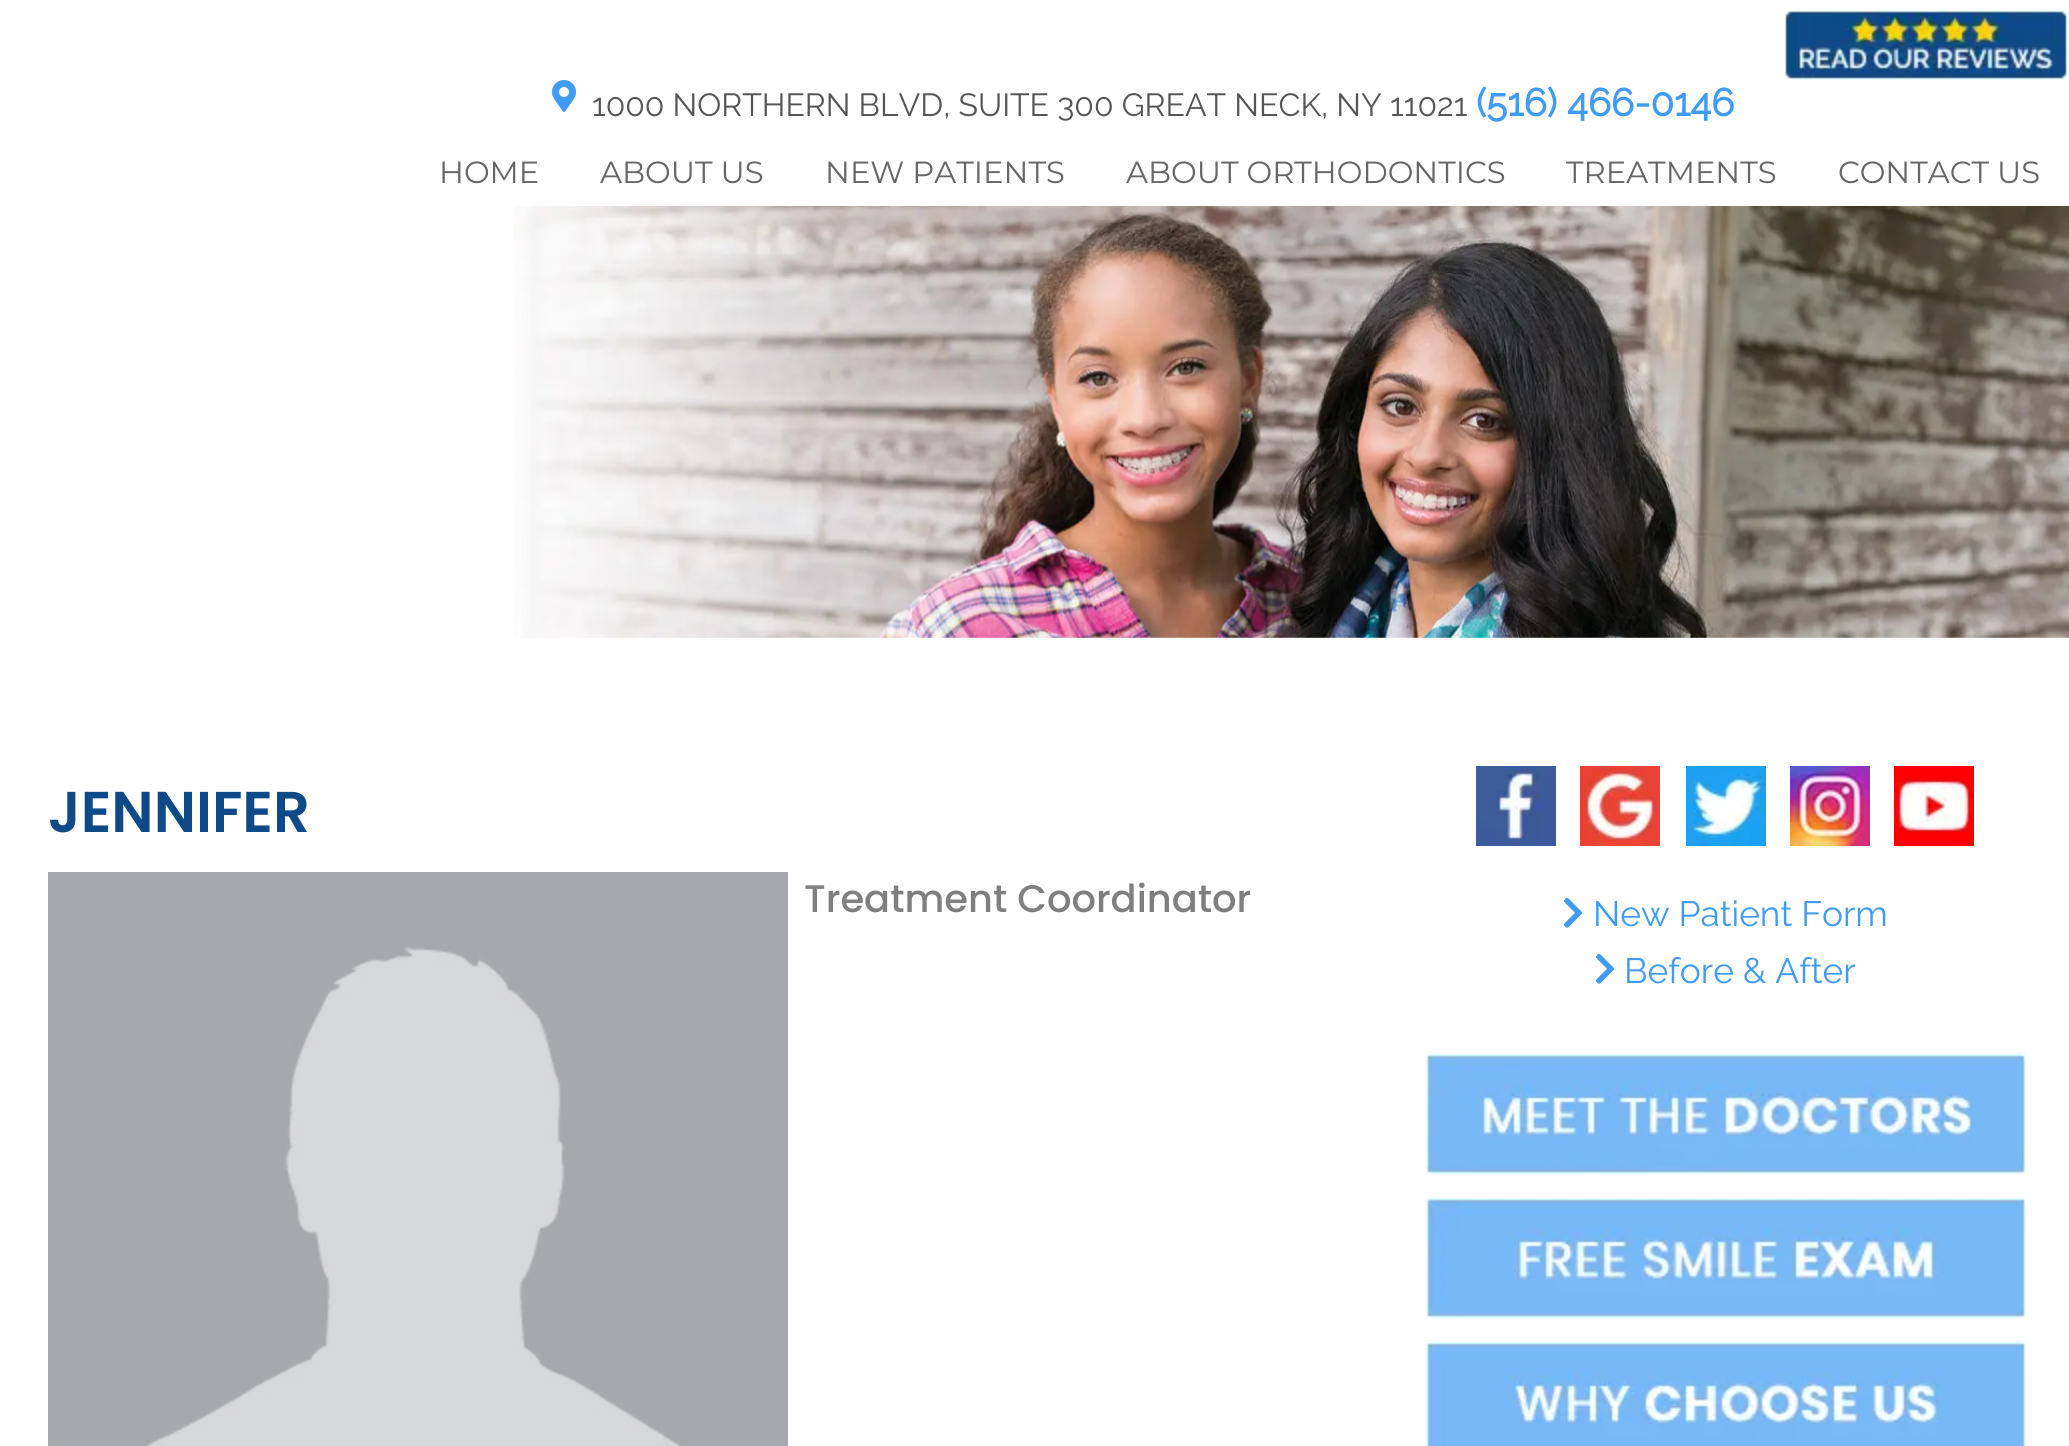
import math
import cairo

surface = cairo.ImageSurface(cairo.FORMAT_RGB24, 2069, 1446)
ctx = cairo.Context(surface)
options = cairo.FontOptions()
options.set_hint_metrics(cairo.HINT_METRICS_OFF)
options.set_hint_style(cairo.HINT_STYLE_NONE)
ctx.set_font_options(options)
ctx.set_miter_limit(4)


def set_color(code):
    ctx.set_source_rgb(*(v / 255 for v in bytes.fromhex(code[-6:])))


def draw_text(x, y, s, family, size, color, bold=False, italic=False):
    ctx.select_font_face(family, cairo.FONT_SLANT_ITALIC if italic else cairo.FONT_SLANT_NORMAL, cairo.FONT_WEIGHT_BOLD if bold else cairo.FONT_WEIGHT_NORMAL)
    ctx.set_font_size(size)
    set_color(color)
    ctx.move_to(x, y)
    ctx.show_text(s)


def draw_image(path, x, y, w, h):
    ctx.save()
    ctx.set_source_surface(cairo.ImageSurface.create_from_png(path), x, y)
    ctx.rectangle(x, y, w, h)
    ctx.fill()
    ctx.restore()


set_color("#ffffff")
ctx.paint()
draw_image("assets/img1.png", 1783, 9, 285, 72)
draw_image("assets/img2.png", 552, 80, 24, 32)
draw_text(592, 116, "1000 NORTHERN BLVD, SUITE 300 GREAT NECK, NY 11021", "Raleway Thin", 32, "#555555")
draw_text(1476, 116, "(516) 466-0146", "Raleway", 38.4, "#3f9bf6", bold=True)
draw_text(439, 183, "HOME", "Montserrat", 30.6, "#666666")
draw_text(600, 183, "ABOUT US", "Montserrat", 30.6, "#666666")
draw_text(825, 183, "NEW PATIENTS", "Montserrat", 30.6, "#666666")
draw_text(1126, 183, "ABOUT ORTHODONTICS", "Montserrat", 30.6, "#666666")
draw_text(1566, 183, "TREATMENTS", "Montserrat", 30.6, "#666666")
draw_text(1838, 183, "CONTACT US", "Montserrat", 30.6, "#666666")
draw_image("assets/img3.png", 513, 206, 1556, 432)
draw_text(48, 832, "JENNIFER", "Poppins SemiBold", 57.5, "#0e4a88")
draw_image("assets/img4.png", 48, 872, 740, 574)
draw_text(804, 912, "Treatment Coordinator", "Poppins Medium", 38.4, "#7f7f7f")
draw_image("assets/img5.png", 1476, 766, 80, 80)
draw_image("assets/img6.png", 1580, 766, 80, 80)
draw_image("assets/img7.png", 1686, 766, 80, 80)
draw_image("assets/img8.png", 1790, 766, 80, 80)
draw_image("assets/img9.png", 1894, 766, 80, 80)
draw_image("assets/img10.png", 1563, 897, 20, 31)
draw_text(1593, 926, "New Patient Form", "Raleway Thin", 35.25, "#3f9bf6")
draw_image("assets/img10.png", 1595, 953, 20, 31)
draw_text(1624, 983, "Before & After", "Raleway Thin", 35.25, "#3f9bf6")
draw_image("assets/img11.png", 1426, 1054, 600, 120)
draw_image("assets/img12.png", 1426, 1198, 600, 120)
draw_image("assets/img13.png", 1426, 1342, 600, 104)
surface.write_to_png("output.png")
